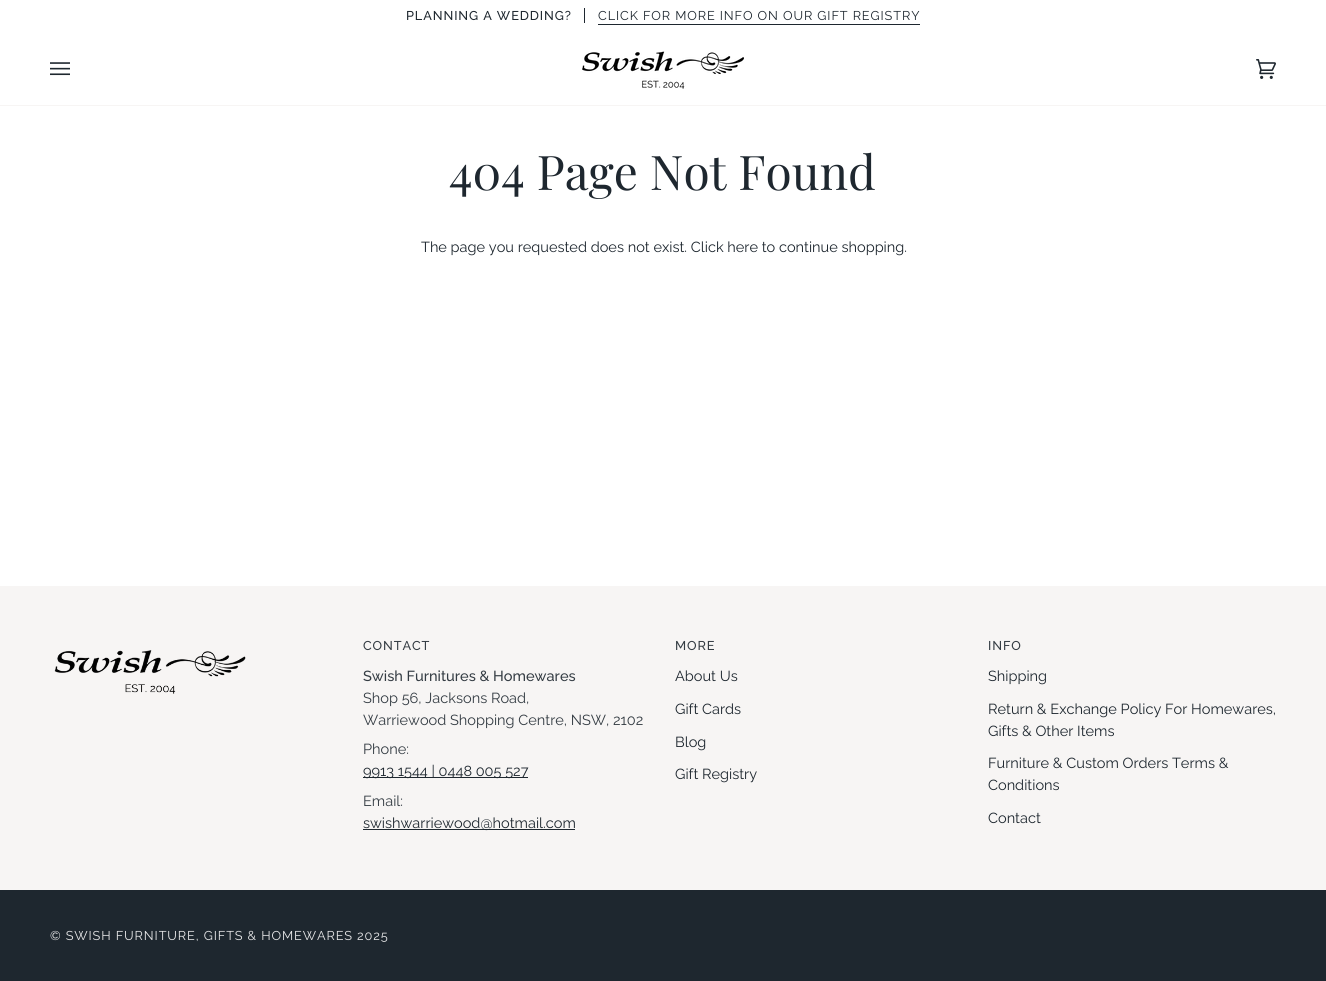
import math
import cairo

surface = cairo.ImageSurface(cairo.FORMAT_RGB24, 1326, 981)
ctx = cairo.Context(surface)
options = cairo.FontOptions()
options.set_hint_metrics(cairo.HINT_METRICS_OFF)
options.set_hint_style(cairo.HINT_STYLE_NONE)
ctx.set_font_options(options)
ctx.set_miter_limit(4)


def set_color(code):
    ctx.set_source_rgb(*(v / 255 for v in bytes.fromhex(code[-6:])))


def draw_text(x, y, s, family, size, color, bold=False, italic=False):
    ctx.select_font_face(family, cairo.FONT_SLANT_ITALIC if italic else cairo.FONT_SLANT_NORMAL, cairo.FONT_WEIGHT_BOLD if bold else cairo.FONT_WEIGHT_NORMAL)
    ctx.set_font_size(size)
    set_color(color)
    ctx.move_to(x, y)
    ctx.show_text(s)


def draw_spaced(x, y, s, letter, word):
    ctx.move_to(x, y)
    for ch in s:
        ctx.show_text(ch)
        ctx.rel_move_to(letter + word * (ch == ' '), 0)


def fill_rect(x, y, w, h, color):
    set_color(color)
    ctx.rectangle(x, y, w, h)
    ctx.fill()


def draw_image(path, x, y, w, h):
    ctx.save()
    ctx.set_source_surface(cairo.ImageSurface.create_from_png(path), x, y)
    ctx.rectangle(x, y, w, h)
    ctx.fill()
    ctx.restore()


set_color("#ffffff")
ctx.paint()
ctx.select_font_face("Raleway Medium")
ctx.set_font_size(12.75)
set_color("#1e272f")
draw_spaced(406, 20, "PLANNING A WEDDING?", 0.9, 0)
fill_rect(584, 8, 1, 15, "#1e272f")
ctx.select_font_face("Raleway")
draw_spaced(598, 20, "CLICK FOR MORE INFO ON OUR GIFT REGISTRY", 0.9, 0)
fill_rect(598, 24, 322, 1, "#1e272f")
fill_rect(0, 105, 1326, 1, "#f7f5f4")
draw_image("assets/img1.png", 50, 62, 20, 14)
draw_image("assets/img2.png", 582, 51, 162, 38)
draw_image("assets/img3.png", 1256, 59, 20, 20)
draw_text(449, 190, "404 Page Not Found", "Playfair Display", 47.75, "#1e272f")
draw_text(421, 252, "The page you requested does not exist. Click here to continue shopping.", "Raleway", 14.55, "#1e272f")
fill_rect(0, 586, 1326, 304, "#f7f5f4")
draw_image("assets/img4.png", 54, 650, 192, 44)
ctx.select_font_face("Raleway Medium")
ctx.set_font_size(12.75)
set_color("#343c43")
draw_spaced(363, 650, "CONTACT", 0.9, 0)
draw_text(363, 681, "Swish Furnitures & Homewares", "Raleway Medium", 14.55, "#343c43")
draw_text(363, 703, "Shop 56, Jacksons Road,", "Raleway", 14.55, "#343c43")
draw_text(363, 725, "Warriewood Shopping Centre, NSW, 2102", "Raleway", 14.55, "#343c43")
draw_text(363, 754, "Phone:", "Raleway", 14.55, "#343c43")
fill_rect(363, 777, 165, 1, "#1e272f")
draw_text(363, 776, "9913 1544 | 0448 005 527", "Raleway", 14.55, "#1e272f")
draw_text(363, 806, "Email:", "Raleway", 14.55, "#343c43")
fill_rect(363, 829, 212, 1, "#1e272f")
draw_text(363, 828, "swishwarriewood@hotmail.com", "Raleway", 14.55, "#1e272f")
ctx.select_font_face("Raleway Medium")
ctx.set_font_size(12.75)
set_color("#343c43")
draw_spaced(675, 650, "MORE", 0.9, 0)
draw_text(675, 681, "About Us", "Raleway", 14.55, "#1e272f")
draw_text(675, 714, "Gift Cards", "Raleway", 14.55, "#1e272f")
draw_text(675, 747, "Blog", "Raleway", 14.55, "#1e272f")
draw_text(675, 779, "Gift Registry", "Raleway", 14.55, "#1e272f")
ctx.select_font_face("Raleway Medium")
ctx.set_font_size(12.75)
set_color("#343c43")
draw_spaced(988, 650, "INFO", 0.9, 0)
draw_text(988, 681, "Shipping", "Raleway", 14.55, "#1e272f")
draw_text(988, 714, "Return & Exchange Policy For Homewares,", "Raleway", 14.55, "#1e272f")
draw_text(988, 736, "Gifts & Other Items", "Raleway", 14.55, "#1e272f")
draw_text(988, 768, "Furniture & Custom Orders Terms &", "Raleway", 14.55, "#1e272f")
draw_text(988, 790, "Conditions", "Raleway", 14.55, "#1e272f")
draw_text(988, 823, "Contact", "Raleway", 14.55, "#1e272f")
fill_rect(0, 890, 1326, 91, "#1e272f")
ctx.set_font_size(12.75)
set_color("#e9e9ea")
draw_spaced(50, 940, "© SWISH FURNITURE, GIFTS & HOMEWARES", 0.9, 0)
draw_spaced(357, 940, "2025", 0.9, 0)
surface.write_to_png("output.png")
